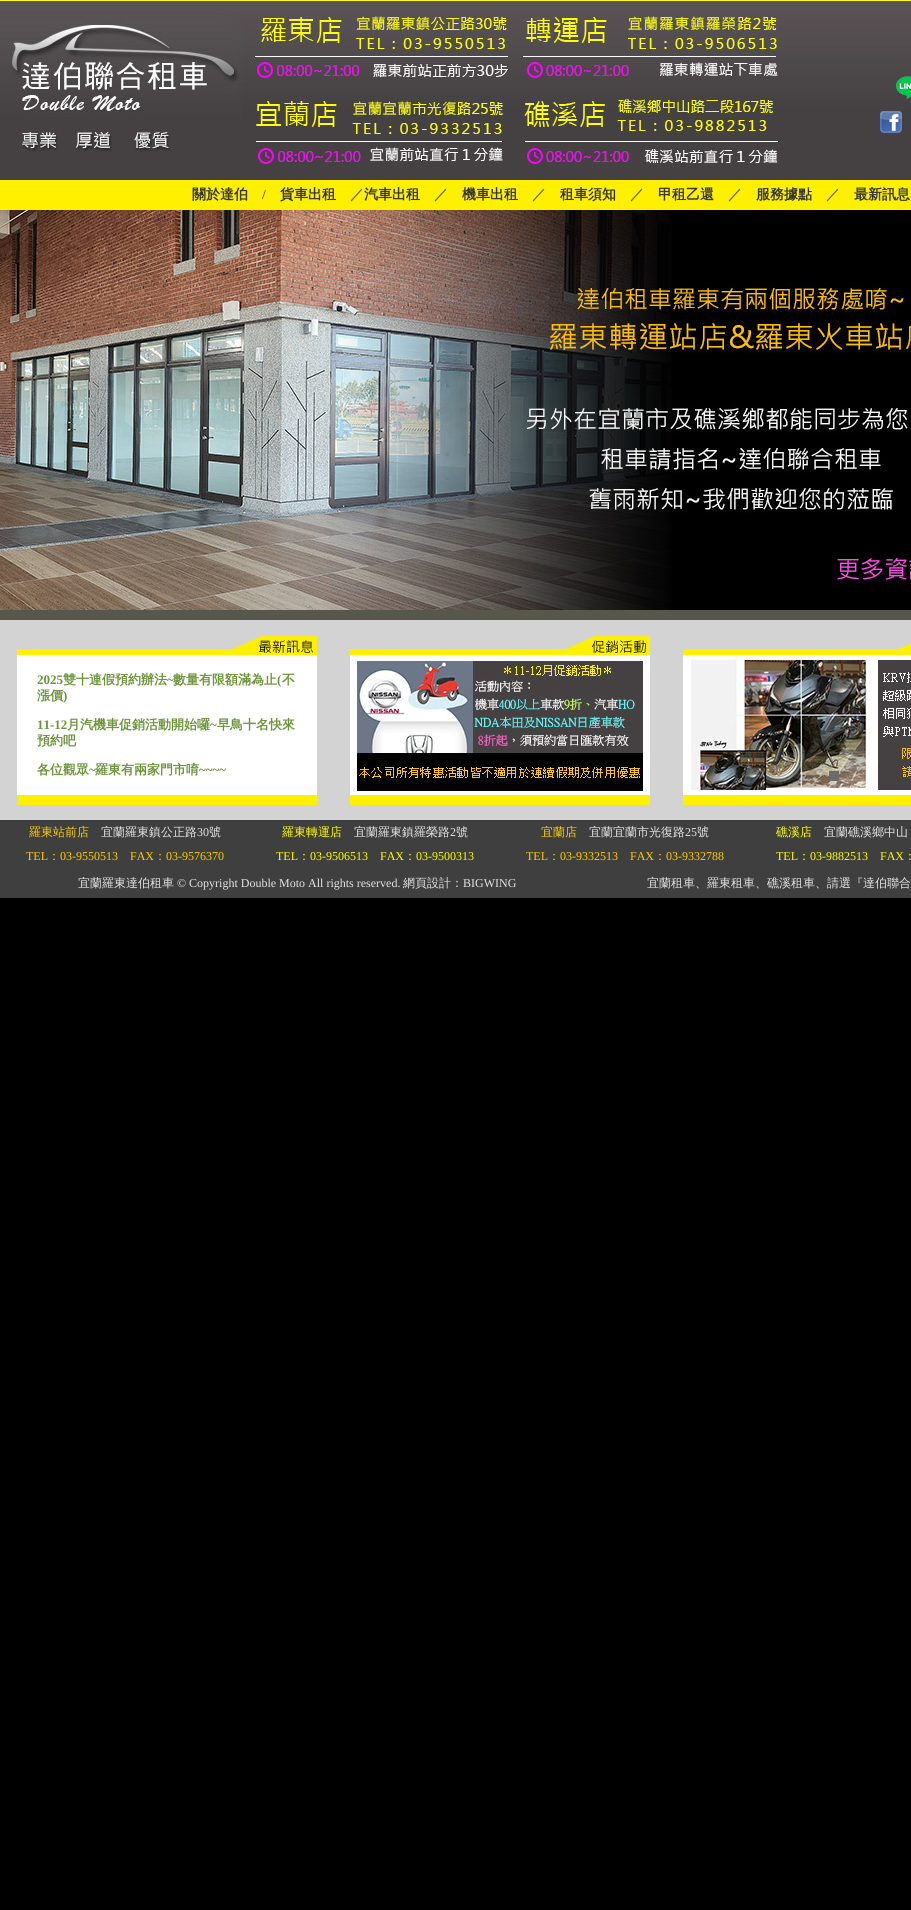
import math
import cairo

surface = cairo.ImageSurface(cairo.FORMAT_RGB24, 911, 1910)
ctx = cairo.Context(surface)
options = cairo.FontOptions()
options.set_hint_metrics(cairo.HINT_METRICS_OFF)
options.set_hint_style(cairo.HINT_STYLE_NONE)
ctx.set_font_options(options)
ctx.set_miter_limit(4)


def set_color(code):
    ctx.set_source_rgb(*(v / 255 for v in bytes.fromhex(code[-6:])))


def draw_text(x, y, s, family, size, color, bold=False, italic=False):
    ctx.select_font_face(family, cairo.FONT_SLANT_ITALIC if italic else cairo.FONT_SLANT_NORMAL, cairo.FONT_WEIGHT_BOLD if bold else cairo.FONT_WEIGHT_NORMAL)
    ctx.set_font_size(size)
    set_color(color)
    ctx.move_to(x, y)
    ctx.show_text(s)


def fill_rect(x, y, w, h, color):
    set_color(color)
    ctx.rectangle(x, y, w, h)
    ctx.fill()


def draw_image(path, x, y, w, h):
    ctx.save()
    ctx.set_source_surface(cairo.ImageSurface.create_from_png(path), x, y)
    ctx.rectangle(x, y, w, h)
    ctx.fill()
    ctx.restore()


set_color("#000000")
ctx.paint()
draw_image("assets/img1.png", 0, 0, 911, 180)
draw_image("assets/img2.png", 896, 76, 15, 23)
draw_image("assets/img3.png", 880, 111, 22, 22)
fill_rect(0, 180, 911, 30, "#fff000")
draw_text(192, 199, "關於達伯", "WenQuanYi Zen Hei", 14, "#333333", bold=True)
draw_text(262, 199, "/", "Liberation Serif", 14, "#666666", bold=True)
draw_text(280, 199, "貨車出租", "WenQuanYi Zen Hei", 14, "#333333", bold=True)
draw_text(350, 199, "／", "WenQuanYi Zen Hei", 14, "#666666", bold=True)
draw_text(364, 199, "汽車出租", "WenQuanYi Zen Hei", 14, "#333333", bold=True)
draw_text(434, 199, "／", "WenQuanYi Zen Hei", 14, "#666666", bold=True)
draw_text(462, 199, "機車出租", "WenQuanYi Zen Hei", 14, "#333333", bold=True)
draw_text(532, 199, "／", "WenQuanYi Zen Hei", 14, "#666666", bold=True)
draw_text(560, 199, "租車須知", "WenQuanYi Zen Hei", 14, "#333333", bold=True)
draw_text(630, 199, "／", "WenQuanYi Zen Hei", 14, "#666666", bold=True)
draw_text(658, 199, "甲租乙還", "WenQuanYi Zen Hei", 14, "#333333", bold=True)
draw_text(728, 199, "／", "WenQuanYi Zen Hei", 14, "#666666", bold=True)
draw_text(756, 199, "服務據點", "WenQuanYi Zen Hei", 14, "#333333", bold=True)
draw_text(826, 199, "／", "WenQuanYi Zen Hei", 14, "#666666", bold=True)
draw_text(854, 199, "最新訊息", "WenQuanYi Zen Hei", 14, "#333333", bold=True)
draw_image("assets/img4.png", 0, 210, 911, 400)
fill_rect(0, 610, 911, 10, "#57574c")
fill_rect(0, 620, 911, 200, "#d4d3d3")
draw_image("assets/img5.png", 17, 636, 300, 169)
draw_text(37, 684, "2025", "Liberation Serif", 13, "#6b9438", bold=True)
draw_text(63, 684, "雙十連假預約辦法", "WenQuanYi Zen Hei", 13, "#6b9438", bold=True)
draw_text(167, 684, "~", "Liberation Serif", 13, "#6b9438", bold=True)
draw_text(173, 684, "數量有限額滿為止", "WenQuanYi Zen Hei", 13, "#6b9438", bold=True)
draw_text(277, 684, "(", "Liberation Serif", 13, "#6b9438", bold=True)
draw_text(282, 684, "不", "WenQuanYi Zen Hei", 13, "#6b9438", bold=True)
draw_text(37, 700, "漲價", "WenQuanYi Zen Hei", 13, "#6b9438", bold=True)
draw_text(63, 700, ")", "Liberation Serif", 13, "#6b9438", bold=True)
draw_text(37, 729, "11-12", "Liberation Serif", 13, "#6b9438", bold=True)
draw_text(67, 729, "月汽機車促銷活動開始囉", "WenQuanYi Zen Hei", 13, "#6b9438", bold=True)
draw_text(210, 729, "~", "Liberation Serif", 13, "#6b9438", bold=True)
draw_text(217, 729, "早鳥十名快來", "WenQuanYi Zen Hei", 13, "#6b9438", bold=True)
draw_text(37, 745, "預約吧", "WenQuanYi Zen Hei", 13, "#6b9438", bold=True)
draw_text(37, 774, "各位觀眾", "WenQuanYi Zen Hei", 13, "#6b9438", bold=True)
draw_text(89, 774, "~", "Liberation Serif", 13, "#6b9438", bold=True)
draw_text(95, 774, "羅東有兩家門市唷", "WenQuanYi Zen Hei", 13, "#6b9438", bold=True)
draw_text(199, 774, "~~~~", "Liberation Serif", 13, "#6b9438", bold=True)
draw_image("assets/img6.png", 350, 636, 300, 25)
draw_image("assets/img7.png", 350, 661, 300, 144)
draw_image("assets/img8.png", 357, 661, 286, 130)
draw_image("assets/img9.png", 683, 643, 228, 162)
draw_image("assets/img10.png", 691, 660, 220, 130)
fill_rect(829, 771, 10, 10, "#6b6b6b")
fill_rect(0, 820, 911, 78, "#3f3f3f")
draw_text(29, 836, "羅東站前店", "WenQuanYi Zen Hei Medium", 12, "#ffcc00")
draw_text(101, 836, "宜蘭羅東鎮公正路", "WenQuanYi Zen Hei Medium", 12, "#e4e4e4")
draw_text(197, 836, "30", "Liberation Serif", 12, "#e4e4e4")
draw_text(209, 836, "號", "WenQuanYi Zen Hei Medium", 12, "#e4e4e4")
draw_text(26, 860, "TEL", "Liberation Serif", 12, "#ffcc00")
draw_text(48, 860, "：", "WenQuanYi Zen Hei Medium", 12, "#ffcc00")
draw_text(60, 860, "03-9550513", "Liberation Serif", 12, "#ffcc00")
draw_text(130, 860, "FAX", "Liberation Serif", 12, "#ffcc00")
draw_text(154, 860, "：", "WenQuanYi Zen Hei Medium", 12, "#ffcc00")
draw_text(166, 860, "03-9576370", "Liberation Serif", 12, "#ffcc00")
draw_text(282, 836, "羅東轉運店", "WenQuanYi Zen Hei Medium", 12, "#ffff00")
draw_text(354, 836, "宜蘭羅東鎮羅榮路", "WenQuanYi Zen Hei Medium", 12, "#e4e4e4")
draw_text(450, 836, "2", "Liberation Serif", 12, "#e4e4e4")
draw_text(456, 836, "號", "WenQuanYi Zen Hei Medium", 12, "#e4e4e4")
draw_text(276, 860, "TEL", "Liberation Serif", 12, "#ffff00")
draw_text(298, 860, "：", "WenQuanYi Zen Hei Medium", 12, "#ffff00")
draw_text(310, 860, "03-9506513", "Liberation Serif", 12, "#ffff00")
draw_text(380, 860, "FAX", "Liberation Serif", 12, "#ffff00")
draw_text(404, 860, "：", "WenQuanYi Zen Hei Medium", 12, "#ffff00")
draw_text(416, 860, "03-9500313", "Liberation Serif", 12, "#ffff00")
draw_text(541, 836, "宜蘭店", "WenQuanYi Zen Hei Medium", 12, "#ffcc00")
draw_text(589, 836, "宜蘭宜蘭市光復路", "WenQuanYi Zen Hei Medium", 12, "#e4e4e4")
draw_text(685, 836, "25", "Liberation Serif", 12, "#e4e4e4")
draw_text(697, 836, "號", "WenQuanYi Zen Hei Medium", 12, "#e4e4e4")
draw_text(526, 860, "TEL", "Liberation Serif", 12, "#ffcc00")
draw_text(548, 860, "：", "WenQuanYi Zen Hei Medium", 12, "#ffcc00")
draw_text(560, 860, "03-9332513", "Liberation Serif", 12, "#ffcc00")
draw_text(630, 860, "FAX", "Liberation Serif", 12, "#ffcc00")
draw_text(654, 860, "：", "WenQuanYi Zen Hei Medium", 12, "#ffcc00")
draw_text(666, 860, "03-9332788", "Liberation Serif", 12, "#ffcc00")
draw_text(776, 836, "礁溪店", "WenQuanYi Zen Hei Medium", 12, "#ffff00")
draw_text(824, 836, "宜蘭礁溪鄉中山", "WenQuanYi Zen Hei Medium", 12, "#e4e4e4")
draw_text(776, 860, "TEL", "Liberation Serif", 12, "#ffff00")
draw_text(798, 860, "：", "WenQuanYi Zen Hei Medium", 12, "#ffff00")
draw_text(810, 860, "03-9882513", "Liberation Serif", 12, "#ffff00")
draw_text(880, 860, "FAX", "Liberation Serif", 12, "#ffff00")
draw_text(904, 860, "：", "WenQuanYi Zen Hei Medium", 12, "#ffff00")
draw_text(78, 887, "宜蘭羅東達伯租車", "WenQuanYi Zen Hei Medium", 12, "#e4e4e4")
draw_text(177, 887, "© Copyright Double Moto All rights reserved.", "Liberation Serif", 12, "#e4e4e4")
draw_text(403, 887, "網頁設計：", "WenQuanYi Zen Hei Medium", 12, "#e4e4e4")
draw_text(463, 887, "BIGWING", "Liberation Serif", 12, "#e4e4e4")
draw_text(647, 887, "宜蘭租車、羅東租車、礁溪租車、請選『達伯聯合", "WenQuanYi Zen Hei Medium", 12, "#e4e4e4")
surface.write_to_png("output.png")
